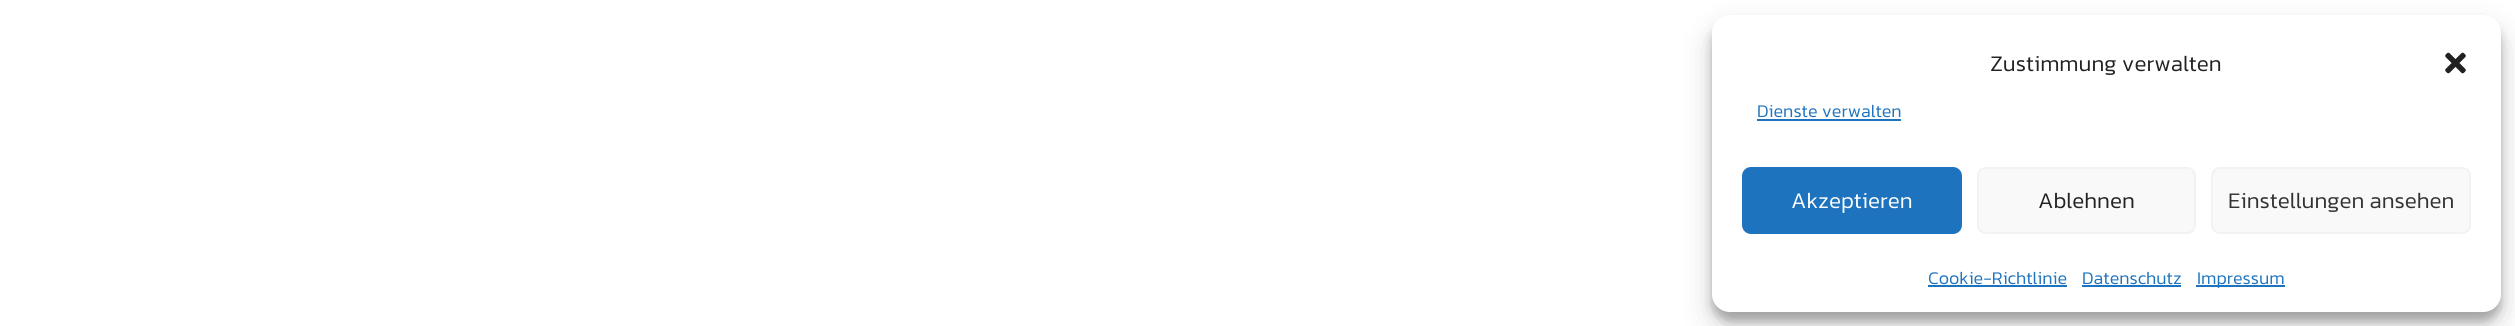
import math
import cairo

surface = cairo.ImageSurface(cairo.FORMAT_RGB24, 2515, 326)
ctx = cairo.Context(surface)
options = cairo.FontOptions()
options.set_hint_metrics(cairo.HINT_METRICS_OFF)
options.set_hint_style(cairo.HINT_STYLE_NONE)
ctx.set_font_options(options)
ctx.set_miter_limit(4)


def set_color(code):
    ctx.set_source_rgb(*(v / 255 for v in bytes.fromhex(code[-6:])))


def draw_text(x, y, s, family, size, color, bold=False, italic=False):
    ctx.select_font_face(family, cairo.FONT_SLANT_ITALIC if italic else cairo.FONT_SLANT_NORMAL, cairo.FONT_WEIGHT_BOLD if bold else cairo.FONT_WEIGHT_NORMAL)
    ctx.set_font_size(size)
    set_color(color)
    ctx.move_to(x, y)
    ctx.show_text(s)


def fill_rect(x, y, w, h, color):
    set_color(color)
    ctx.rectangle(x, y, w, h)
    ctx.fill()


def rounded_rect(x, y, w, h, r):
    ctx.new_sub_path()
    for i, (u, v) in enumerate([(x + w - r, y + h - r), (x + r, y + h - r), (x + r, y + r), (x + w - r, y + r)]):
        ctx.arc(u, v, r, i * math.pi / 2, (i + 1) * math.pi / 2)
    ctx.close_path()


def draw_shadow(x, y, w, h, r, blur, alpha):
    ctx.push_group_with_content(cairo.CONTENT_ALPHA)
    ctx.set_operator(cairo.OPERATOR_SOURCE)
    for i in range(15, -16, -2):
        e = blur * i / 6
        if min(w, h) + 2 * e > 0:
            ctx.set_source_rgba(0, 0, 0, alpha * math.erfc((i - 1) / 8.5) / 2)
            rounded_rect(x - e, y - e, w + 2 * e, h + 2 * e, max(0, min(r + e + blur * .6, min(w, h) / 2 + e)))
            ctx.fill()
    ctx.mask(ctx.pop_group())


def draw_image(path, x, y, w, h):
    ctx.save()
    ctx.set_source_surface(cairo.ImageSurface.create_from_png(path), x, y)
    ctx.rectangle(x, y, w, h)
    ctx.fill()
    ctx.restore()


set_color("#ffffff")
ctx.paint()
set_color("#000000")
draw_shadow(1712, 24, 789, 297, 18, 4.5, 0.23)
draw_shadow(1712, 30, 789, 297, 18, 15, 0.19)
set_color("#ffffff")
rounded_rect(1712, 15, 789, 297, 18)
ctx.fill()
draw_text(1990, 71, "Zustimmung verwalten", "Kanit Light", 22.5, "#222222")
draw_image("assets/img1.png", 2445, 52, 21, 22)
draw_text(1757, 117, "Dienste verwalten", "Kanit Light", 18, "#1e73be")
fill_rect(1757, 119, 144, 2, "#1e73be")
rounded_rect(1743, 168, 218, 65, 8)
ctx.fill_preserve()
ctx.stroke()
draw_text(1791, 208, "Akzeptieren", "Kanit Light", 22.5, "#ffffff")
set_color("#f9f9f9")
rounded_rect(1978, 168, 217, 65, 8)
ctx.fill_preserve()
set_color("#f2f2f2")
ctx.stroke()
draw_text(2038, 208, "Ablehnen", "Kanit Light", 22.5, "#222222")
set_color("#f9f9f9")
rounded_rect(2212, 168, 258, 65, 8)
ctx.fill_preserve()
set_color("#f2f2f2")
ctx.stroke()
draw_text(2228, 208, "Einstellungen ansehen", "Kanit Light", 22.5, "#333333")
draw_text(1928, 284, "Cookie-Richtlinie", "Kanit Light", 18, "#1e73be")
fill_rect(1928, 285, 139, 2, "#1e73be")
draw_text(2082, 284, "Datenschutz", "Kanit Light", 18, "#1e73be")
fill_rect(2082, 285, 99, 2, "#1e73be")
fill_rect(2196, 285, 89, 2, "#1e73be")
draw_text(2197, 284, "Impressum", "Kanit Light", 18, "#1e73be")
surface.write_to_png("output.png")
